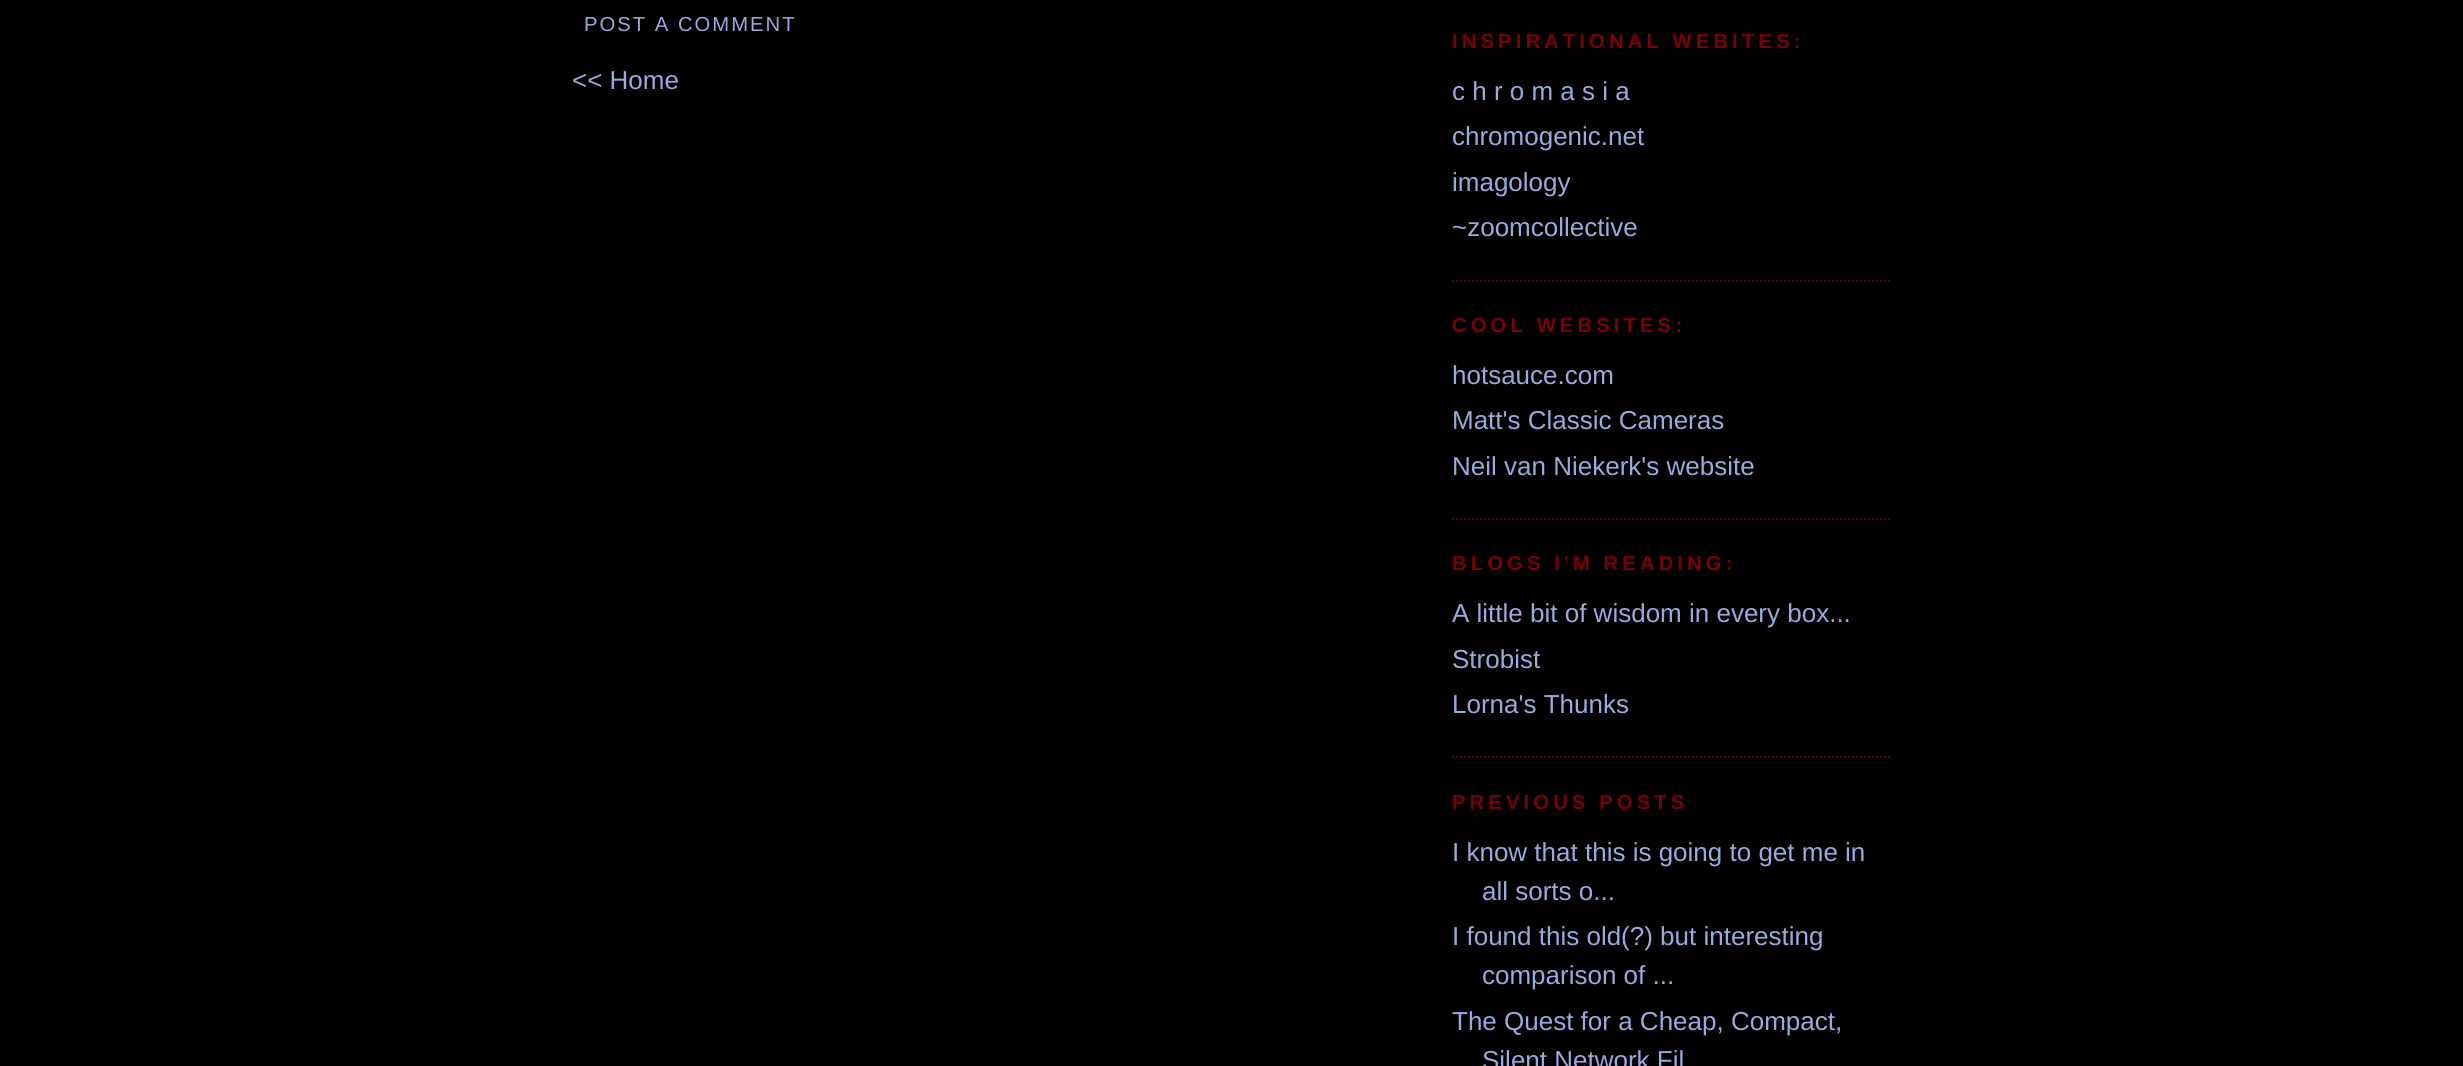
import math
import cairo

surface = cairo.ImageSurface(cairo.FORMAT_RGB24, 2463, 1066)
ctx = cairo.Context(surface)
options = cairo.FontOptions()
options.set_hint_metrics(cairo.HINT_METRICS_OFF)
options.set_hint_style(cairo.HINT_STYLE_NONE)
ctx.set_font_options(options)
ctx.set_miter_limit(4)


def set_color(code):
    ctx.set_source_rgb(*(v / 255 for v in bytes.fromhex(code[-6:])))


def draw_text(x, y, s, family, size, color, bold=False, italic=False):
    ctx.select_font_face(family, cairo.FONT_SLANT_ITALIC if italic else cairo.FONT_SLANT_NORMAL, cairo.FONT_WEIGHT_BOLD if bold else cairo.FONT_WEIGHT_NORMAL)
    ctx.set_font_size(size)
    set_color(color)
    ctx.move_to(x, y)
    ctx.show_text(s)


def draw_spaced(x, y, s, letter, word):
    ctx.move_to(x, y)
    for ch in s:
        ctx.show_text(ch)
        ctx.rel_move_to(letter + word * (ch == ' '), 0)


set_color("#000000")
ctx.paint()
ctx.select_font_face("Liberation Sans")
ctx.set_font_size(20.25)
set_color("#99aadd")
draw_spaced(584, 31, "POST A COMMENT", 2, 0)
draw_text(572, 89, "<< Home", "Liberation Sans", 26, "#99aadd")
ctx.select_font_face("Liberation Sans", cairo.FONT_SLANT_NORMAL, cairo.FONT_WEIGHT_BOLD)
ctx.set_font_size(20.25)
set_color("#7a0007")
draw_spaced(1452, 48, "INSPIRATIONAL WEBITES:", 4.1, 0)
ctx.new_path()
ctx.move_to(1452, 281)
ctx.line_to(1892, 281)
set_color("#560005")
ctx.set_dash([2, 2])
ctx.stroke()
draw_text(1452, 100, "c h r o m a s i a", "Liberation Sans", 26, "#99aadd")
draw_text(1452, 145, "chromogenic.net", "Liberation Sans", 26, "#99aadd")
draw_text(1452, 191, "imagology", "Liberation Sans", 26, "#99aadd")
draw_text(1452, 236, "~zoomcollective", "Liberation Sans", 26, "#99aadd")
ctx.select_font_face("Liberation Sans", cairo.FONT_SLANT_NORMAL, cairo.FONT_WEIGHT_BOLD)
ctx.set_font_size(20.25)
set_color("#7a0007")
draw_spaced(1452, 332, "COOL WEBSITES:", 4.1, 0)
ctx.new_path()
ctx.move_to(1452, 519)
ctx.line_to(1892, 519)
set_color("#560005")
ctx.stroke()
draw_text(1452, 384, "hotsauce.com", "Liberation Sans", 26, "#99aadd")
draw_text(1452, 429, "Matt's Classic Cameras", "Liberation Sans", 26, "#99aadd")
draw_text(1452, 475, "Neil van Niekerk's website", "Liberation Sans", 26, "#99aadd")
ctx.select_font_face("Liberation Sans", cairo.FONT_SLANT_NORMAL, cairo.FONT_WEIGHT_BOLD)
ctx.set_font_size(20.25)
set_color("#7a0007")
draw_spaced(1452, 570, "BLOGS I'M READING:", 4.1, 0)
ctx.new_path()
ctx.move_to(1452, 757)
ctx.line_to(1892, 757)
set_color("#560005")
ctx.stroke()
draw_text(1452, 622, "A little bit of wisdom in every box...", "Liberation Sans", 26, "#99aadd")
draw_text(1452, 668, "Strobist", "Liberation Sans", 26, "#99aadd")
draw_text(1452, 713, "Lorna's Thunks", "Liberation Sans", 26, "#99aadd")
ctx.select_font_face("Liberation Sans", cairo.FONT_SLANT_NORMAL, cairo.FONT_WEIGHT_BOLD)
ctx.set_font_size(20.25)
set_color("#7a0007")
draw_spaced(1452, 809, "PREVIOUS POSTS", 4.1, 0)
draw_text(1452, 861, "I know that this is going to get me in", "Liberation Sans", 26, "#99aadd")
draw_text(1482, 900, "all sorts o...", "Liberation Sans", 26, "#99aadd")
draw_text(1452, 945, "I found this old(?) but interesting", "Liberation Sans", 26, "#99aadd")
draw_text(1482, 984, "comparison of ...", "Liberation Sans", 26, "#99aadd")
draw_text(1452, 1030, "The Quest for a Cheap, Compact,", "Liberation Sans", 26, "#99aadd")
draw_text(1482, 1069, "Silent Network Fil", "Liberation Sans", 26, "#99aadd")
surface.write_to_png("output.png")
